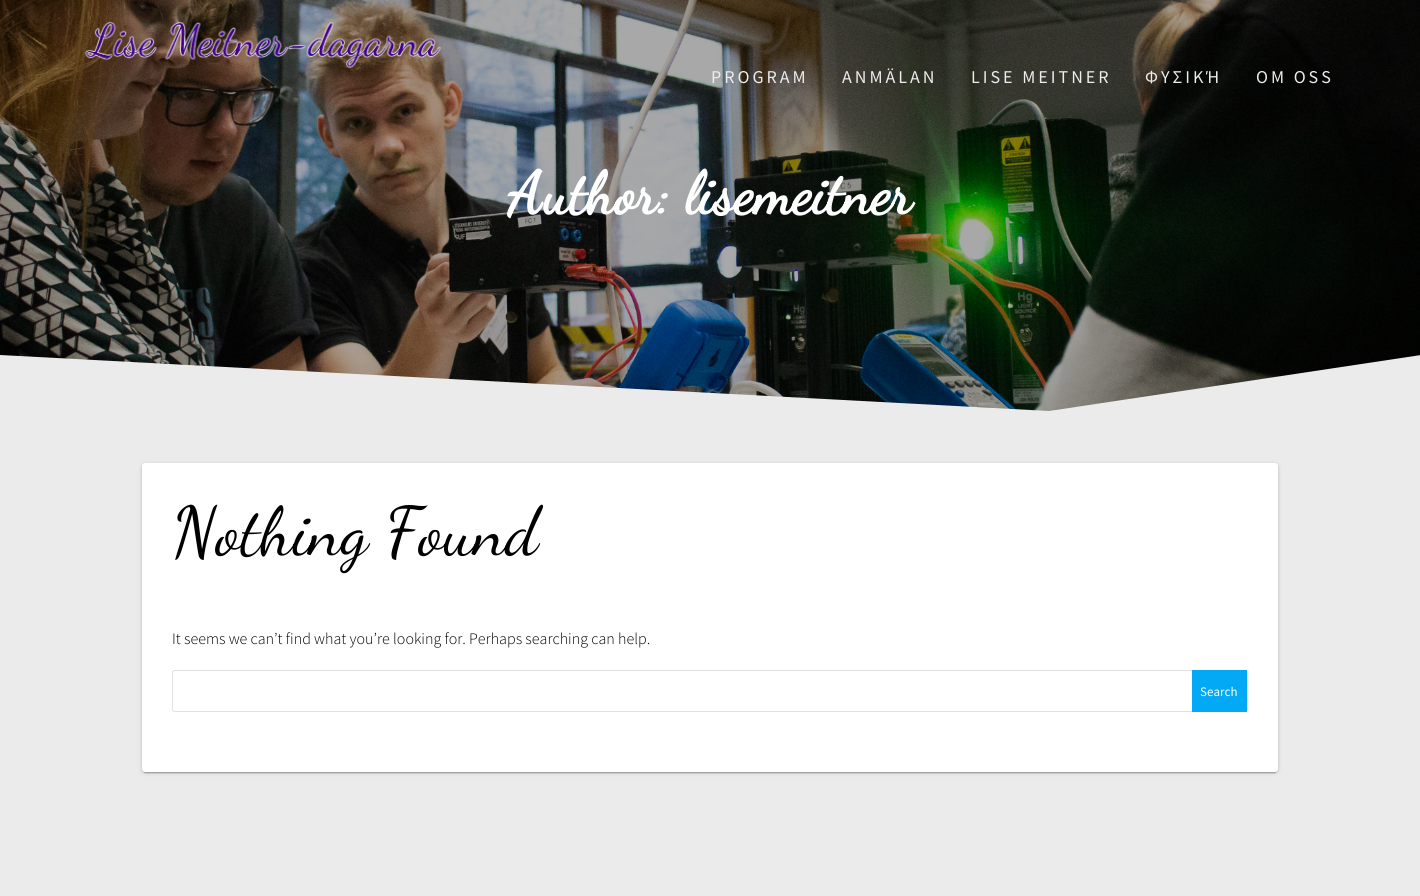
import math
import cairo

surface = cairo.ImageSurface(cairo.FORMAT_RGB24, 1420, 896)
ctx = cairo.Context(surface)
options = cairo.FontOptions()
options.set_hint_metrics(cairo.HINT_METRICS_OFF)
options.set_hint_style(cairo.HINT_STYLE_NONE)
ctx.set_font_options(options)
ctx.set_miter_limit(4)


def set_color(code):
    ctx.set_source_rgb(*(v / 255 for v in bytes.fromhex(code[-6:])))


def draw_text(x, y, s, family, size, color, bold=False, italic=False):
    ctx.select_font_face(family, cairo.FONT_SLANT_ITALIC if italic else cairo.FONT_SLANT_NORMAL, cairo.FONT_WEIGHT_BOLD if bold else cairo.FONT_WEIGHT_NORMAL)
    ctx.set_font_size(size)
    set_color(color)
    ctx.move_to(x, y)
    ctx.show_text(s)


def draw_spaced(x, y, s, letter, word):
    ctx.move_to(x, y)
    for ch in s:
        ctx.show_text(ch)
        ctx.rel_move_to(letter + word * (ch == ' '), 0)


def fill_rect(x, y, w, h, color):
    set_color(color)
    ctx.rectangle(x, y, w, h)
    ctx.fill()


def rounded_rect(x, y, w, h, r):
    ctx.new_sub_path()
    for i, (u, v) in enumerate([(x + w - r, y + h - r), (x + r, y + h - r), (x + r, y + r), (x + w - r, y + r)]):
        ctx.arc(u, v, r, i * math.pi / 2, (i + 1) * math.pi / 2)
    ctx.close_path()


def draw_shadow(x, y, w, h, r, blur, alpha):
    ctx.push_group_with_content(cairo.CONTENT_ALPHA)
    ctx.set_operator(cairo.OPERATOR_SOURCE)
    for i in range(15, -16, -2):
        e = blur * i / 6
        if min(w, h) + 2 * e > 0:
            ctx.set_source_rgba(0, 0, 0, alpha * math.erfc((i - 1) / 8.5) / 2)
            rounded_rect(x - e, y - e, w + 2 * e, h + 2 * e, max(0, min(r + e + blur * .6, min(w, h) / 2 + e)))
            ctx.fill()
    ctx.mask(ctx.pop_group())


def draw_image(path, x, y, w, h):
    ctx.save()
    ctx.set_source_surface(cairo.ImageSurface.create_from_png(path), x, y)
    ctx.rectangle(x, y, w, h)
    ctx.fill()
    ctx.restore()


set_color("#ebebeb")
ctx.paint()
draw_image("assets/img2.png", 0, 0, 1420, 411)
draw_image("assets/img1.png", 84, 21, 357, 48)
ctx.select_font_face("Source Sans Pro")
ctx.set_font_size(18)
set_color("#ededed")
draw_spaced(711, 83, "PROGRAM", 3, 0)
draw_spaced(842, 83, "ANMÄLAN", 3, 0)
draw_spaced(971, 83, "LISE MEITNER", 3, 0)
draw_spaced(1145, 83, "ΦΥΣΙΚΉ", 3, 0)
draw_spaced(1256, 83, "OM OSS", 3, 0)
draw_text(508, 213, "Author: lisemeitner", "Dancing Script", 59.5, "#ffffff", bold=True)
set_color("#ebebeb")
ctx.new_path()
ctx.move_to(1049, 411)
ctx.line_to(0, 355)
ctx.line_to(0, 414)
ctx.line_to(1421, 414)
ctx.line_to(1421, 355)
ctx.close_path()
ctx.fill()
set_color("#000000")
draw_shadow(142, 464, 1136, 309, 3, 2.5, 0.12)
draw_shadow(144, 468, 1132, 305, 1, 0.5, 0.2)
draw_shadow(142, 464, 1136, 309, 3, 1, 0.14)
set_color("#ffffff")
rounded_rect(142, 463, 1136, 309, 3)
ctx.fill()
draw_text(172, 554, "Nothing Found", "Dancing Script", 68.5, "#000000")
draw_text(172, 644, "It seems we can’t find what you’re looking for. Perhaps searching can help.", "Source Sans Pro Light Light", 16, "#000000")
rounded_rect(172.5, 670.5, 1075, 41, 2.5)
set_color("#e0e0e0")
ctx.set_line_width(1)
ctx.stroke()
fill_rect(1192, 670, 55, 42, "#03a9f4")
draw_text(1200, 696, "Search", "Source Sans Pro", 13, "#ffffff")
surface.write_to_png("output.png")
